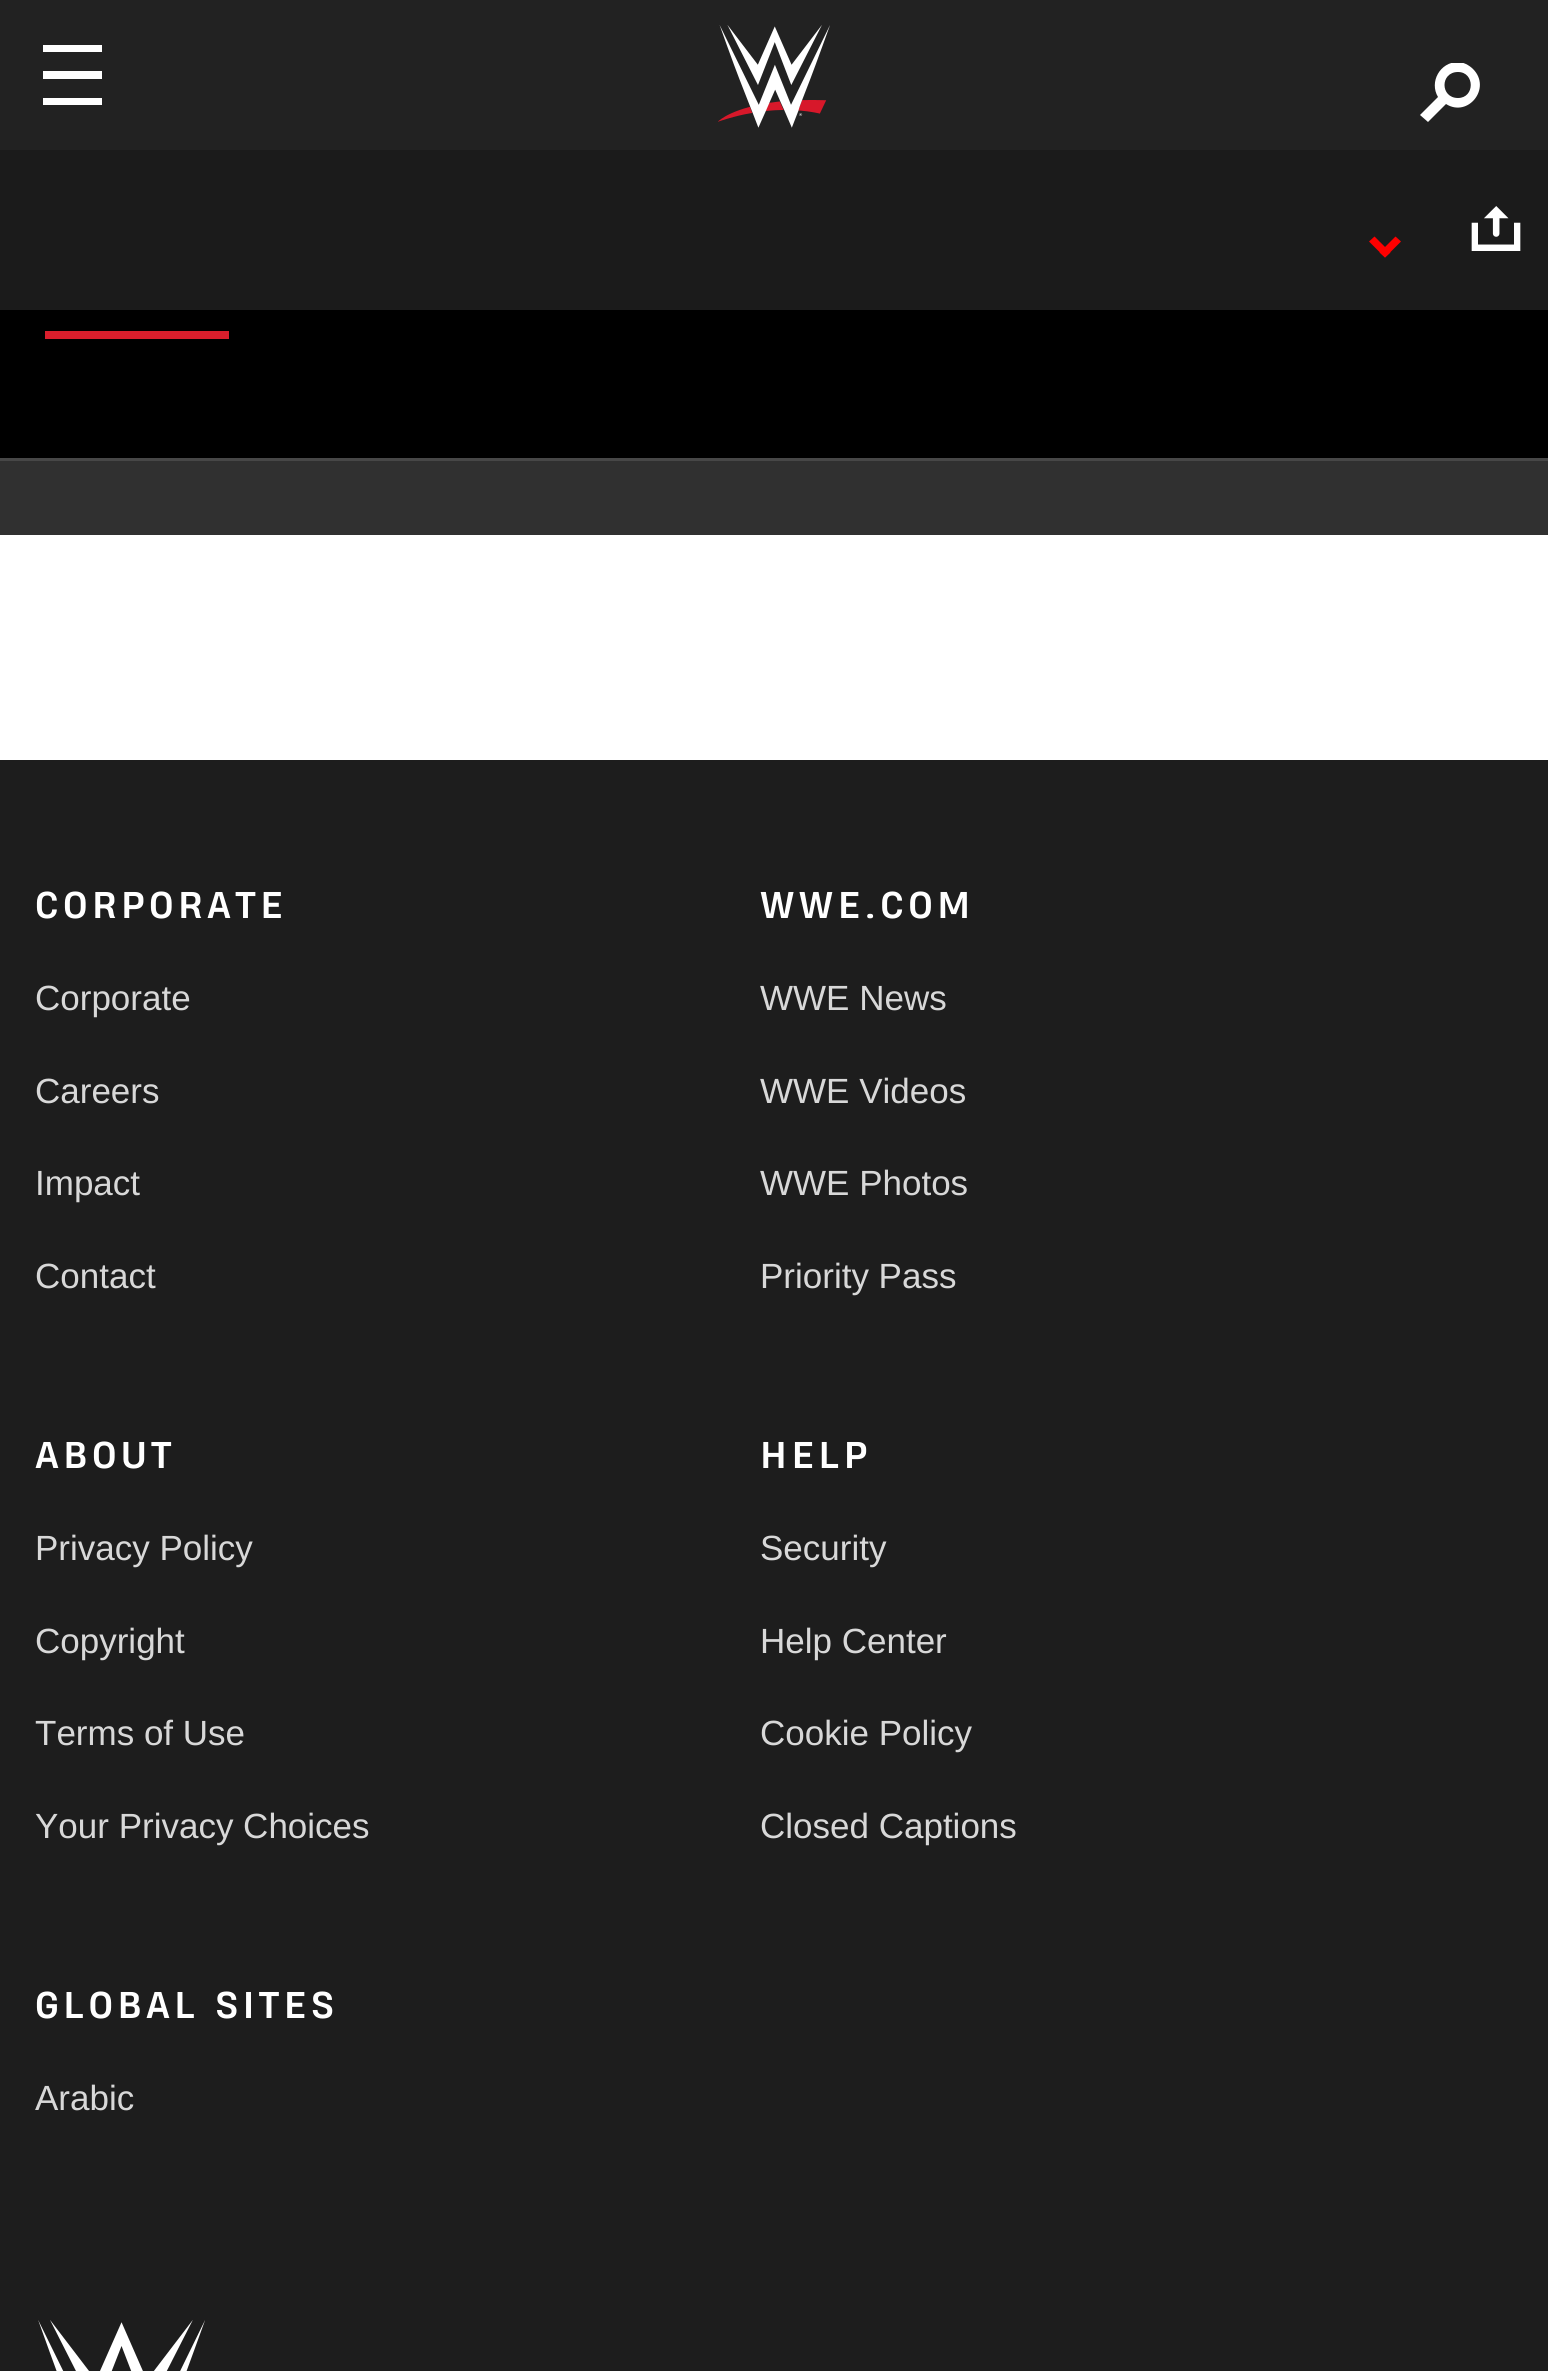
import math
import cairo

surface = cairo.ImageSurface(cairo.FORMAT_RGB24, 1548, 2371)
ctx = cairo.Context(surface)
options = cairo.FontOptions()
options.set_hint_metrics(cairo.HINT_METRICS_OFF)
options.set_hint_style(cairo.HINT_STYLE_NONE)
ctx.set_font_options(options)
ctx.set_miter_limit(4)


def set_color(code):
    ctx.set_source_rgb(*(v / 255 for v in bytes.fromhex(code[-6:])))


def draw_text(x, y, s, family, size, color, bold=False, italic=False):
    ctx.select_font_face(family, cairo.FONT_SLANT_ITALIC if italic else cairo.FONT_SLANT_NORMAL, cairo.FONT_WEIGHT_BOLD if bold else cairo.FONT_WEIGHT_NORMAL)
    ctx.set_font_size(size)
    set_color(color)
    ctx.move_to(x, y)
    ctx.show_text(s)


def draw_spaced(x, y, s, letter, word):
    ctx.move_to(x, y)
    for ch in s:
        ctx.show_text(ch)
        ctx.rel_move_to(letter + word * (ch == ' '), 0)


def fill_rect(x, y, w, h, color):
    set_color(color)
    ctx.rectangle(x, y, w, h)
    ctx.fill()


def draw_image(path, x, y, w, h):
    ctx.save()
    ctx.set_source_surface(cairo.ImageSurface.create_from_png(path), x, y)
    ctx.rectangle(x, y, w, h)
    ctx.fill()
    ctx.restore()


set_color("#ffffff")
ctx.paint()
fill_rect(0, 0, 1548, 150, "#222222")
ctx.save()
ctx.rectangle(43, 45, 60, 60)
ctx.clip()
set_color("#ffffff")
ctx.set_fill_rule(cairo.FILL_RULE_EVEN_ODD)
ctx.new_path()
ctx.move_to(46, 52)
ctx.line_to(42, 52)
ctx.line_to(42, 45)
ctx.line_to(102, 45)
ctx.line_to(102, 52)
ctx.close_path()
ctx.move_to(46, 79)
ctx.line_to(42, 79)
ctx.line_to(42, 71)
ctx.line_to(102, 71)
ctx.line_to(102, 79)
ctx.close_path()
ctx.move_to(46, 105)
ctx.line_to(42, 105)
ctx.line_to(42, 98)
ctx.line_to(102, 98)
ctx.line_to(102, 105)
ctx.close_path()
ctx.fill()
ctx.restore()
draw_image("assets/img1.png", 718, 25, 112, 103)
ctx.save()
ctx.rectangle(1420, 63, 60, 60)
ctx.clip()
set_color("#ffffff")
ctx.set_fill_rule(cairo.FILL_RULE_EVEN_ODD)
ctx.new_path()
ctx.move_to(1458, 62)
ctx.curve_to(1463, 62, 1469, 65, 1473, 69)
ctx.curve_to(1492, 88, 1468, 118, 1446, 104)
ctx.line_to(1428, 122)
ctx.line_to(1420, 115)
ctx.line_to(1438, 97)
ctx.curve_to(1429, 82, 1440, 62, 1458, 62)
ctx.close_path()
ctx.move_to(1458, 72)
ctx.curve_to(1440, 72, 1440, 98, 1458, 98)
ctx.curve_to(1475, 98, 1475, 72, 1458, 72)
ctx.close_path()
ctx.fill()
ctx.restore()
fill_rect(0, 461, 1548, 74, "#303030")
fill_rect(0, 150, 1548, 160, "#1b1b1b")
set_color("#ff0000")
ctx.new_path()
ctx.move_to(1395.5, 236.5)
ctx.line_to(1401, 241.5)
ctx.line_to(1385, 257.5)
ctx.line_to(1379.5, 252.5)
ctx.close_path()
ctx.fill()
ctx.new_path()
ctx.move_to(1374.5, 236.5)
ctx.line_to(1390.5, 252.5)
ctx.line_to(1385, 257.5)
ctx.line_to(1369, 241.5)
ctx.close_path()
ctx.fill()
draw_image("assets/img2.png", 1471, 206, 50, 45)
fill_rect(0, 310, 1548, 148, "#000000")
fill_rect(0, 458, 1548, 3, "#474747")
fill_rect(45, 331, 184, 8, "#d91e2c")
fill_rect(0, 760, 1548, 1611, "#1d1d1d")
ctx.select_font_face("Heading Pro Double", cairo.FONT_SLANT_NORMAL, cairo.FONT_WEIGHT_BOLD)
ctx.set_font_size(35)
set_color("#ffffff")
draw_spaced(35, 918, "CORPORATE", 4.4, 0)
draw_text(35, 1010, "Corporate", "Liberation Sans", 35, "#d8d8d8")
draw_text(35, 1103, "Careers", "Liberation Sans", 35, "#d8d8d8")
draw_text(35, 1195, "Impact", "Liberation Sans", 35, "#d8d8d8")
draw_text(35, 1288, "Contact", "Liberation Sans", 35, "#d8d8d8")
ctx.select_font_face("Heading Pro Double", cairo.FONT_SLANT_NORMAL, cairo.FONT_WEIGHT_BOLD)
set_color("#ffffff")
draw_spaced(760, 918, "WWE.COM", 4.4, 0)
draw_text(760, 1010, "WWE News", "Liberation Sans", 35, "#d8d8d8")
draw_text(760, 1103, "WWE Videos", "Liberation Sans", 35, "#d8d8d8")
draw_text(760, 1195, "WWE Photos", "Liberation Sans", 35, "#d8d8d8")
draw_text(760, 1288, "Priority Pass", "Liberation Sans", 35, "#d8d8d8")
ctx.select_font_face("Heading Pro Double", cairo.FONT_SLANT_NORMAL, cairo.FONT_WEIGHT_BOLD)
set_color("#ffffff")
draw_spaced(35, 1468, "ABOUT", 4.4, 0)
draw_text(35, 1560, "Privacy Policy", "Liberation Sans", 35, "#d8d8d8")
draw_text(35, 1653, "Copyright", "Liberation Sans", 35, "#d8d8d8")
draw_text(35, 1745, "Terms of Use", "Liberation Sans", 35, "#d8d8d8")
draw_text(35, 1838, "Your Privacy Choices", "Liberation Sans", 35, "#d8d8d8")
ctx.select_font_face("Heading Pro Double", cairo.FONT_SLANT_NORMAL, cairo.FONT_WEIGHT_BOLD)
set_color("#ffffff")
draw_spaced(760, 1468, "HELP", 4.4, 0)
draw_text(760, 1560, "Security", "Liberation Sans", 35, "#d8d8d8")
draw_text(760, 1653, "Help Center", "Liberation Sans", 35, "#d8d8d8")
draw_text(760, 1745, "Cookie Policy", "Liberation Sans", 35, "#d8d8d8")
draw_text(760, 1838, "Closed Captions", "Liberation Sans", 35, "#d8d8d8")
ctx.select_font_face("Heading Pro Double", cairo.FONT_SLANT_NORMAL, cairo.FONT_WEIGHT_BOLD)
set_color("#ffffff")
draw_spaced(35, 2018, "GLOBAL SITES", 4.4, 0)
draw_text(35, 2110, "Arabic", "Liberation Sans", 35, "#d8d8d8")
draw_image("assets/img3.png", 38, 2320, 167, 51)
surface.write_to_png("output.png")
